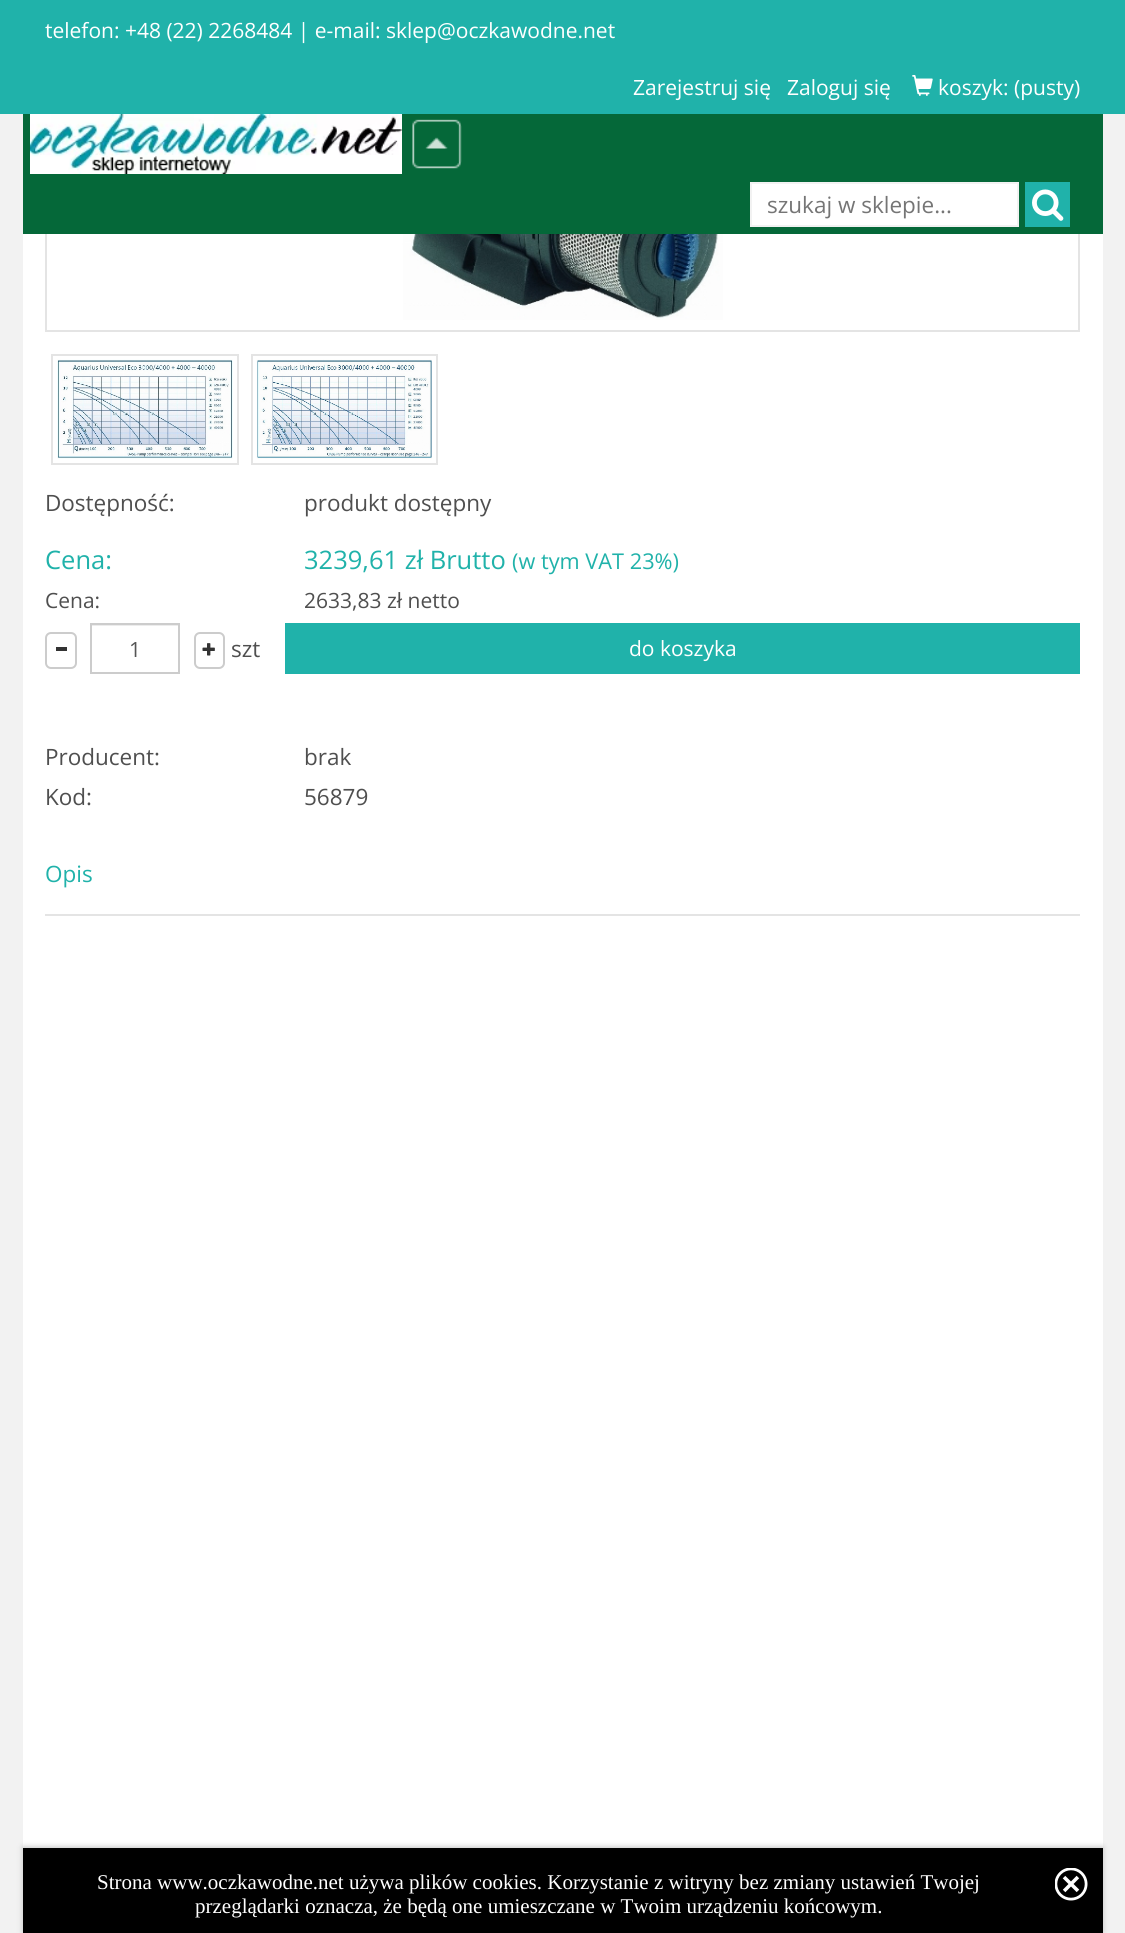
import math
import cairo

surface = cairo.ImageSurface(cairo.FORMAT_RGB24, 1125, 1933)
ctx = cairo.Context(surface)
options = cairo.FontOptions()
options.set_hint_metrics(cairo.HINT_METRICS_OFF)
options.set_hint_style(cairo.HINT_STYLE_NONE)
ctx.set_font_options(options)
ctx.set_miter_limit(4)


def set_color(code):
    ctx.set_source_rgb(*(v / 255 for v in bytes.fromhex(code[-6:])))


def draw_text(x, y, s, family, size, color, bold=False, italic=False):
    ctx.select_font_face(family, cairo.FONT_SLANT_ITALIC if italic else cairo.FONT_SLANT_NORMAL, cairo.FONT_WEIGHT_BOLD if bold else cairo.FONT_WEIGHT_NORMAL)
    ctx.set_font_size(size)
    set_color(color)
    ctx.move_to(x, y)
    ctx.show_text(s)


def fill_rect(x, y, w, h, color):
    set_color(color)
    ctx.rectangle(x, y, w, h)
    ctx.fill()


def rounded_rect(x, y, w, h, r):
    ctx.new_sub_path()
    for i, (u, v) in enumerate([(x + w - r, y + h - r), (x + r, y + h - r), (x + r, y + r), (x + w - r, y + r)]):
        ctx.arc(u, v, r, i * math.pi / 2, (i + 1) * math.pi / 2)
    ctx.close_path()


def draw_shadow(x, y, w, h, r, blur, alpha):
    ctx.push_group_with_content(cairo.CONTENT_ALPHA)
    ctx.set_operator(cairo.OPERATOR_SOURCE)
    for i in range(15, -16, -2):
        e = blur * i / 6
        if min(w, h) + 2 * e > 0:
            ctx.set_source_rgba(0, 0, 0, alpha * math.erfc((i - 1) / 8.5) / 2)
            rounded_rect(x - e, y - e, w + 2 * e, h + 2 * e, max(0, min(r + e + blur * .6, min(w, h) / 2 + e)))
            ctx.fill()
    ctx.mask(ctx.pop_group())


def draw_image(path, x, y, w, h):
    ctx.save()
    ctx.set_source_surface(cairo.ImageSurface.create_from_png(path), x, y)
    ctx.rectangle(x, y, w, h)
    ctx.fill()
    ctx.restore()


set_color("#f2f2f2")
ctx.paint()
fill_rect(23, 234, 1080, 1614, "#ffffff")
ctx.rectangle(46, 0, 1033, 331)
set_color("#e4e4e4")
ctx.stroke()
fill_rect(0, 0, 1125, 114, "#20b2aa")
draw_text(45, 38, "telefon: +48 (22) 2268484 | e-mail: sklep@oczkawodne.net", "Open Sans", 21, "#ffffff")
draw_text(633, 95, "Zarejestruj się", "Open Sans", 21, "#ffffff")
draw_text(787, 95, "Zaloguj się", "Open Sans", 21, "#ffffff")
draw_image("assets/img1.png", 912, 75, 21, 21)
draw_text(938, 95, "koszyk: (pusty)", "Open Sans", 21, "#ffffff")
fill_rect(23, 114, 1080, 120, "#056839")
draw_image("assets/img2.png", 30, 114, 372, 60)
draw_image("assets/img3.png", 412, 119, 50, 50)
set_color("#ffffff")
ctx.rectangle(751, 183, 267, 43)
ctx.fill_preserve()
set_color("#f2f2f2")
ctx.stroke()
draw_text(767, 213, "szukaj w sklepie...", "Open Sans", 22.5, "#757575")
fill_rect(1025, 182, 45, 45, "#20b2aa")
draw_image("assets/img4.png", 1032, 189, 32, 32)
draw_image("assets/img5.png", 402, 234, 321, 86)
ctx.rectangle(52, 355, 186, 109)
set_color("#e4e4e4")
ctx.stroke()
ctx.rectangle(252, 355, 185, 109)
ctx.stroke()
draw_image("assets/img6.png", 57, 359, 176, 100)
draw_image("assets/img7.png", 256, 359, 176, 100)
draw_text(45, 511, "Dostępność:", "Open Sans", 22.5, "#4f4f4f")
draw_text(304, 511, "produkt dostępny", "Open Sans", 22.5, "#4f4f4f")
draw_text(45, 569, "Cena:", "Open Sans", 25.5, "#20b2aa")
draw_text(304, 569, "3239,61 zł Brutto", "Open Sans", 25.5, "#20b2aa")
draw_text(512, 569, "(w tym VAT 23%)", "Open Sans", 21.75, "#20b2aa")
draw_text(45, 608, "Cena:", "Open Sans", 21, "#4f4f4f")
draw_text(304, 608, "2633,83 zł netto", "Open Sans", 21, "#4f4f4f")
rounded_rect(46, 633, 30, 35, 5)
set_color("#cccccc")
ctx.stroke()
fill_rect(56, 647, 11, 4, "#333333")
fill_rect(92, 625, 87, 1, "#ececec")
ctx.rectangle(91, 624, 88, 49)
set_color("#cccccc")
ctx.stroke()
draw_text(129, 657, "1", "Open Sans", 21, "#555555")
rounded_rect(195, 633, 29, 35, 5)
set_color("#cccccc")
ctx.stroke()
draw_image("assets/img8.png", 202, 643, 13, 13)
draw_text(231, 657, "szt", "Open Sans", 22.5, "#4f4f4f")
fill_rect(285, 623, 795, 51, "#20b2aa")
draw_text(629, 656, "do koszyka", "Open Sans", 21, "#ffffff")
draw_text(45, 765, "Producent:", "Open Sans", 22.5, "#4f4f4f")
draw_text(304, 765, "brak", "Open Sans", 22.5, "#4f4f4f")
draw_text(45, 805, "Kod:", "Open Sans", 22.5, "#4f4f4f")
draw_text(304, 805, "56879", "Open Sans", 22.5, "#4f4f4f")
fill_rect(45, 914, 1035, 2, "#e4e4e4")
draw_text(45, 882, "Opis", "Open Sans", 22.5, "#20b2aa")
set_color("#c1c1c1")
draw_shadow(23, 1847, 1080, 85, 0, 3, 1)
fill_rect(23, 1848, 1080, 85, "#000000")
draw_text(97, 1889, "Strona www.oczkawodne.net używa plików cookies. Korzystanie z witryny bez zmiany ustawień Twojej", "Liberation Serif", 21, "#ffffff")
draw_text(195, 1913, "przeglądarki oznacza, że będą one umieszczane w Twoim urządzeniu końcowym.", "Liberation Serif", 21, "#ffffff")
draw_image("assets/img9.png", 1055, 1868, 33, 33)
surface.write_to_png("output.png")
